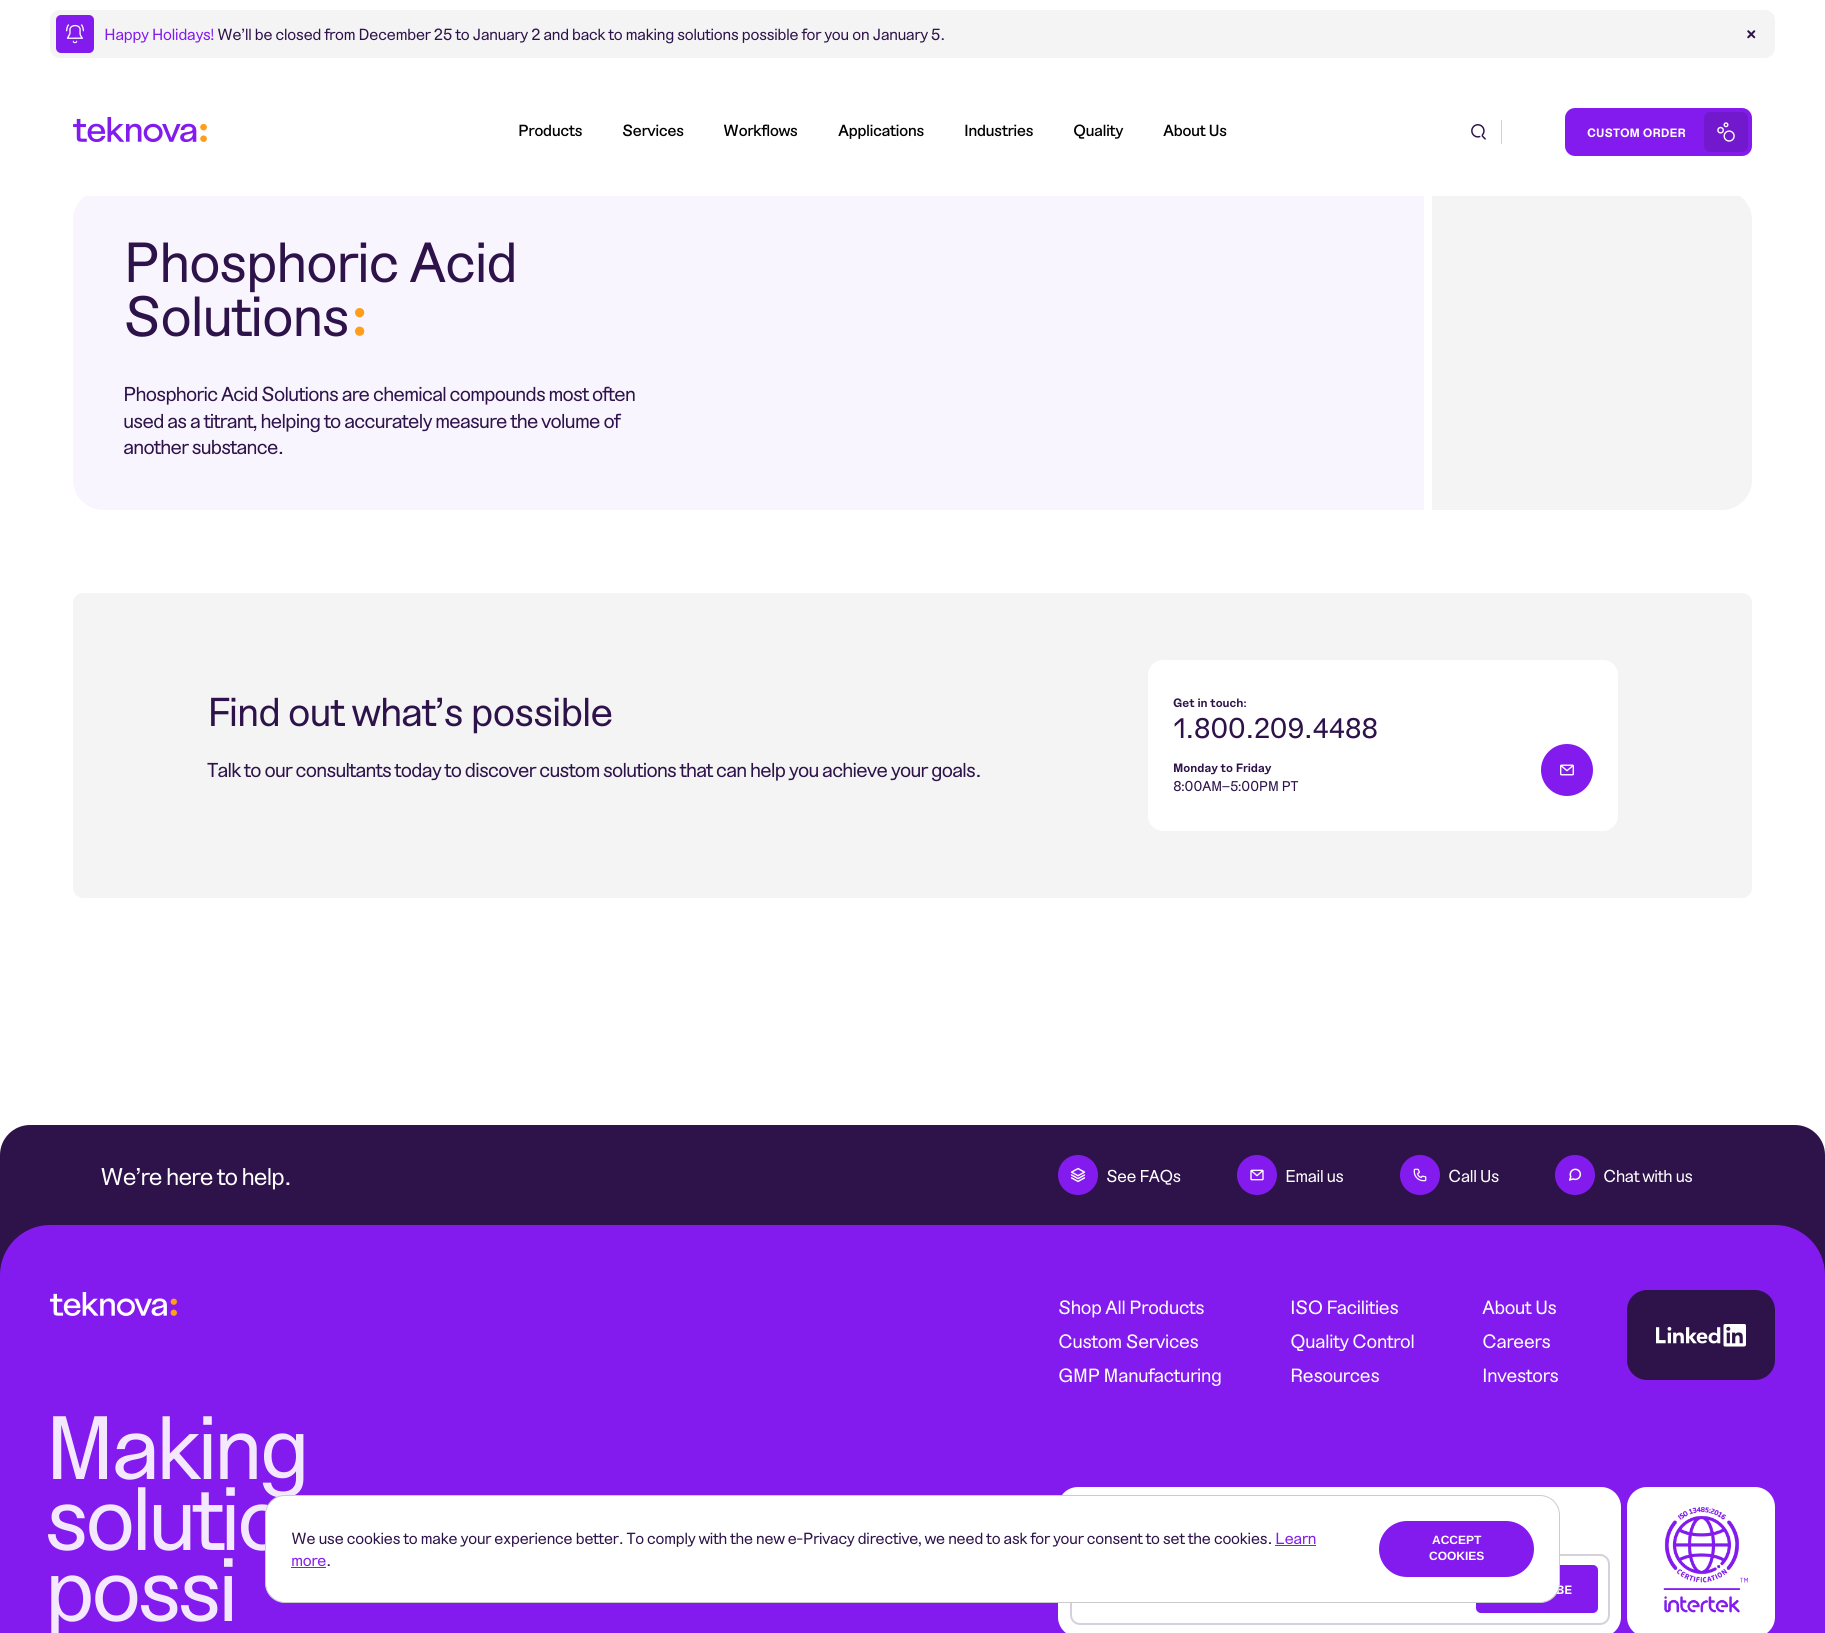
import math
import cairo

surface = cairo.ImageSurface(cairo.FORMAT_RGB24, 1825, 1633)
ctx = cairo.Context(surface)
options = cairo.FontOptions()
options.set_hint_metrics(cairo.HINT_METRICS_OFF)
options.set_hint_style(cairo.HINT_STYLE_NONE)
ctx.set_font_options(options)
ctx.set_miter_limit(4)


def set_color(code):
    ctx.set_source_rgb(*(v / 255 for v in bytes.fromhex(code[-6:])))


def draw_text(x, y, s, family, size, color, bold=False, italic=False):
    ctx.select_font_face(family, cairo.FONT_SLANT_ITALIC if italic else cairo.FONT_SLANT_NORMAL, cairo.FONT_WEIGHT_BOLD if bold else cairo.FONT_WEIGHT_NORMAL)
    ctx.set_font_size(size)
    set_color(color)
    ctx.move_to(x, y)
    ctx.show_text(s)


def draw_spaced(x, y, s, letter, word):
    ctx.move_to(x, y)
    for ch in s:
        ctx.show_text(ch)
        ctx.rel_move_to(letter + word * (ch == ' '), 0)


def fill_rect(x, y, w, h, color):
    set_color(color)
    ctx.rectangle(x, y, w, h)
    ctx.fill()


def rounded_rect(x, y, w, h, r):
    ctx.new_sub_path()
    for i, (u, v) in enumerate([(x + w - r, y + h - r), (x + r, y + h - r), (x + r, y + r), (x + w - r, y + r)]):
        ctx.arc(u, v, r, i * math.pi / 2, (i + 1) * math.pi / 2)
    ctx.close_path()


def draw_image(path, x, y, w, h):
    ctx.save()
    ctx.set_source_surface(cairo.ImageSurface.create_from_png(path), x, y)
    ctx.rectangle(x, y, w, h)
    ctx.fill()
    ctx.restore()


set_color("#ffffff")
ctx.paint()
set_color("#f4f4f4")
rounded_rect(50, 10, 1725, 48, 10)
ctx.fill()
set_color("#841bee")
rounded_rect(56, 15, 38, 38, 5)
ctx.fill()
draw_image("assets/img1.png", 66, 24, 19, 20)
ctx.select_font_face("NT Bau")
ctx.set_font_size(16)
draw_spaced(104, 40, "Happy Holidays!", -0.64, 0)
set_color("#2e134a")
draw_spaced(217, 40, "We’ll be closed from December 25 to January 2 and back to making solutions possible for you on January 5.", -0.64, 0)
draw_image("assets/img2.png", 1747, 30, 9, 9)
set_color("#f9f5fe")
ctx.new_path()
ctx.move_to(103, 190)
ctx.line_to(1424, 190)
ctx.line_to(1424, 510)
ctx.line_to(103, 510)
ctx.curve_to(86.5, 510, 73, 496.5, 73, 480)
ctx.line_to(73, 220)
ctx.curve_to(73, 203.5, 86.5, 190, 103, 190)
ctx.close_path()
ctx.fill()
set_color("#f4f4f4")
ctx.new_path()
ctx.move_to(1432, 190)
ctx.line_to(1722, 190)
ctx.curve_to(1738.5, 190, 1752, 203.5, 1752, 220)
ctx.line_to(1752, 480)
ctx.curve_to(1752, 496.5, 1738.5, 510, 1722, 510)
ctx.line_to(1432, 510)
ctx.close_path()
ctx.fill()
fill_rect(85, 190, 1655, 6, "#ffffff")
draw_image("assets/img3.png", 73, 117, 134, 25)
ctx.select_font_face("NT Bau Medium")
set_color("#000000")
draw_spaced(518, 136, "Products", -0.6, 0)
draw_spaced(622, 136, "Services", -0.6, 0)
draw_spaced(723, 136, "Workflows", -0.6, 0)
draw_spaced(838, 136, "Applications", -0.6, 0)
draw_spaced(964, 136, "Industries", -0.6, 0)
draw_spaced(1073, 136, "Quality", -0.6, 0)
draw_spaced(1163, 136, "About Us", -0.6, 0)
fill_rect(1501, 120, 1, 24, "#d5d0db")
draw_image("assets/img4.png", 1471, 124, 15, 16)
set_color("#841bee")
rounded_rect(1565, 108, 187, 48, 10)
ctx.fill()
draw_text(1587, 137, "CUSTOM ORDER", "NT Bau", 12, "#ffffff", bold=True)
set_color("#7319cd")
rounded_rect(1704, 112, 44, 40, 6)
ctx.fill()
draw_image("assets/img5.png", 1717, 122, 18, 20)
ctx.select_font_face("NT Bau")
ctx.set_font_size(56)
set_color("#2e134a")
draw_spaced(123, 282, "Phosphoric Acid", -2.25, 0)
draw_spaced(123, 336, "Solutions", -2.25, 0)
draw_image("assets/img6.png", 355, 308, 10, 28)
ctx.set_font_size(20)
draw_spaced(123, 401, "Phosphoric Acid Solutions are chemical compounds most often", -1.2, 0)
draw_spaced(123, 428, "used as a titrant, helping to accurately measure the volume of", -1.2, 0)
draw_spaced(123, 454, "another substance.", -1.2, 0)
set_color("#f4f4f4")
rounded_rect(73, 593, 1679, 305, 10)
ctx.fill()
ctx.set_font_size(40)
set_color("#2e134a")
draw_spaced(207, 726, "Find out what’s possible", -1.6, 0)
ctx.set_font_size(20)
draw_spaced(207, 777, "Talk to our consultants today to discover custom solutions that can help you achieve your goals.", -1.2, 0)
set_color("#ffffff")
rounded_rect(1148, 660, 470, 171, 15)
ctx.fill()
draw_text(1173, 707, "Get in touch:", "NT Bau", 12, "#2e134a", bold=True)
ctx.select_font_face("NT Bau")
ctx.set_font_size(28)
draw_spaced(1173, 738, "1.800.209.4488", -1.1, 0)
draw_text(1173, 772, "Monday to Friday", "NT Bau", 12, "#2e134a", bold=True)
ctx.select_font_face("NT Bau")
ctx.set_font_size(14)
draw_spaced(1173, 791, "8:00AM–5:00PM PT", -0.5, 0)
set_color("#841bee")
ctx.new_path()
ctx.arc(1567, 770, 26, 0, 2 * math.pi)
ctx.fill()
draw_image("assets/img7.png", 1560, 764, 14, 12)
set_color("#2e134a")
ctx.new_path()
ctx.move_to(30, 1125)
ctx.line_to(1795, 1125)
ctx.curve_to(1811.5, 1125, 1825, 1138.5, 1825, 1155)
ctx.line_to(1825, 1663)
ctx.line_to(0, 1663)
ctx.line_to(0, 1155)
ctx.curve_to(0, 1138.5, 13.5, 1125, 30, 1125)
ctx.close_path()
ctx.fill()
ctx.set_font_size(24)
set_color("#ffffff")
draw_spaced(100, 1185, "We're here to help.", -1.4, 0)
set_color("#841bee")
ctx.new_path()
ctx.arc(1078, 1175, 20, 0, 2 * math.pi)
ctx.fill()
draw_image("assets/img8.png", 1070, 1167, 16, 16)
ctx.set_font_size(17)
set_color("#ffffff")
draw_spaced(1106, 1182, "See FAQs", -0.75, 0)
set_color("#841bee")
ctx.new_path()
ctx.arc(1257, 1175, 20, 0, 2 * math.pi)
ctx.fill()
draw_image("assets/img9.png", 1250, 1169, 14, 12)
set_color("#ffffff")
draw_spaced(1285, 1182, "Email us", -0.75, 0)
set_color("#841bee")
ctx.new_path()
ctx.arc(1420, 1175, 20, 0, 2 * math.pi)
ctx.fill()
draw_image("assets/img10.png", 1413, 1168, 14, 14)
set_color("#ffffff")
draw_spaced(1448, 1182, "Call Us", -0.75, 0)
set_color("#841bee")
ctx.new_path()
ctx.arc(1575, 1175, 20, 0, 2 * math.pi)
ctx.fill()
draw_image("assets/img11.png", 1569, 1168, 13, 13)
set_color("#ffffff")
draw_spaced(1603, 1182, "Chat with us", -0.75, 0)
set_color("#841bee")
ctx.new_path()
ctx.move_to(50, 1225)
ctx.line_to(1775, 1225)
ctx.curve_to(1802.5, 1225, 1825, 1247.5, 1825, 1275)
ctx.line_to(1825, 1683)
ctx.line_to(0, 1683)
ctx.line_to(0, 1275)
ctx.curve_to(0, 1247.5, 22.5, 1225, 50, 1225)
ctx.close_path()
ctx.fill()
draw_image("assets/img12.png", 50, 1292, 127, 24)
ctx.set_font_size(19)
set_color("#ffffff")
draw_spaced(1058, 1314, "Shop All Products", -0.75, 0)
draw_spaced(1058, 1348, "Custom Services", -0.75, 0)
draw_spaced(1058, 1382, "GMP Manufacturing", -0.75, 0)
draw_spaced(1290, 1314, "ISO Facilities", -0.75, 0)
draw_spaced(1290, 1348, "Quality Control", -0.75, 0)
draw_spaced(1290, 1382, "Resources", -0.75, 0)
draw_spaced(1482, 1314, "About Us", -0.75, 0)
draw_spaced(1482, 1348, "Careers", -0.75, 0)
draw_spaced(1482, 1382, "Investors", -0.75, 0)
set_color("#2e134a")
rounded_rect(1627, 1290, 148, 90, 20)
ctx.fill()
draw_image("assets/img13.png", 1656, 1324, 90, 23)
ctx.set_font_size(89)
set_color("#f3e8fd")
draw_spaced(44, 1479, "Making", -5.5, 0)
draw_spaced(44, 1550, "solutio", -5.5, 0)
draw_spaced(44, 1621, "possi", -5.5, 0)
set_color("#ffffff")
rounded_rect(1058, 1487, 563, 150, 20)
ctx.fill()
rounded_rect(1071, 1555, 538, 69, 9)
set_color("#d5d0db")
ctx.stroke()
set_color("#841bee")
rounded_rect(1476, 1565, 122, 48, 5)
ctx.fill()
draw_text(1556, 1594, "BE", "NT Bau", 12, "#ffffff", bold=True)
rounded_rect(1627, 1487, 148, 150, 20)
ctx.fill()
draw_image("assets/img14.png", 1663, 1507, 85, 106)
rounded_rect(265.5, 1495.5, 1294, 107, 19.5)
ctx.fill_preserve()
set_color("#cccccc")
ctx.set_line_width(1)
ctx.stroke()
ctx.select_font_face("NT Bau")
ctx.set_font_size(16)
set_color("#2e134a")
draw_spaced(291, 1544, "We use cookies to make your experience better. To comply with the new e-Privacy directive, we need to ask for your consent to set the cookies.", -0.64, 0)
set_color("#841bee")
draw_spaced(1275, 1544, "Learn", -0.64, 0)
fill_rect(1275, 1545, 41, 1, "#841bee")
draw_spaced(291, 1566, "more", -0.64, 0)
fill_rect(291, 1567, 35, 1, "#841bee")
set_color("#2e134a")
draw_spaced(326, 1566, ".", -0.64, 0)
set_color("#841bee")
rounded_rect(1379, 1521, 155, 56, 28)
ctx.fill()
draw_text(1432, 1544, "ACCEPT", "Liberation Sans", 12, "#ffffff", bold=True)
draw_text(1429, 1560, "COOKIES", "Liberation Sans", 12, "#ffffff", bold=True)
surface.write_to_png("output.png")
